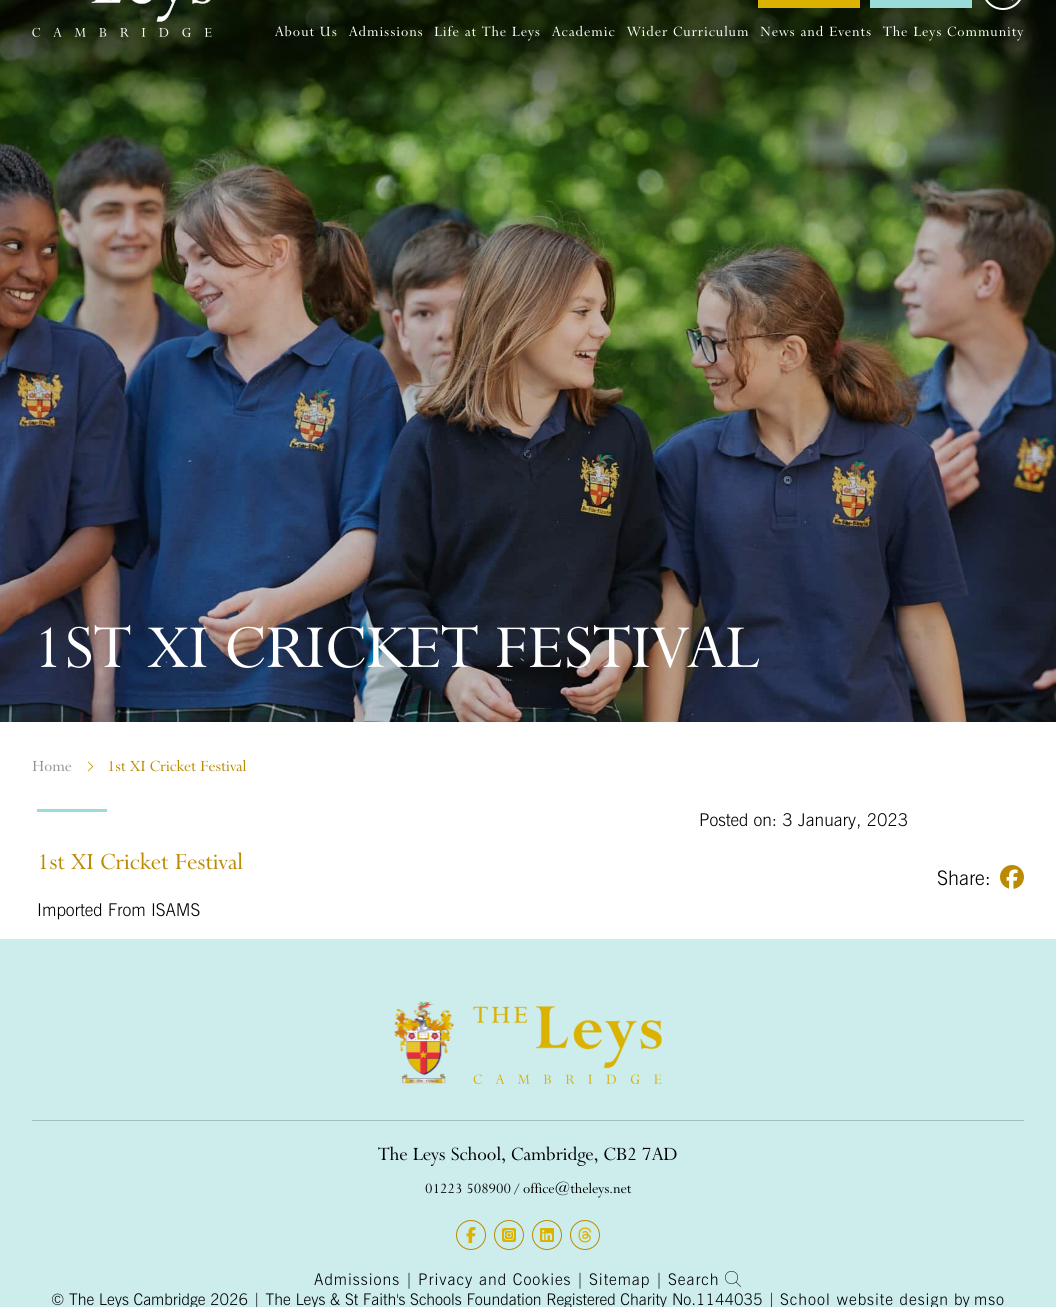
import math
import cairo

surface = cairo.ImageSurface(cairo.FORMAT_RGB24, 1056, 1307)
ctx = cairo.Context(surface)
options = cairo.FontOptions()
options.set_hint_metrics(cairo.HINT_METRICS_OFF)
options.set_hint_style(cairo.HINT_STYLE_NONE)
ctx.set_font_options(options)
ctx.set_miter_limit(4)


def set_color(code):
    ctx.set_source_rgb(*(v / 255 for v in bytes.fromhex(code[-6:])))


def draw_text(x, y, s, family, size, color, bold=False, italic=False):
    ctx.select_font_face(family, cairo.FONT_SLANT_ITALIC if italic else cairo.FONT_SLANT_NORMAL, cairo.FONT_WEIGHT_BOLD if bold else cairo.FONT_WEIGHT_NORMAL)
    ctx.set_font_size(size)
    set_color(color)
    ctx.move_to(x, y)
    ctx.show_text(s)


def draw_spaced(x, y, s, letter, word):
    ctx.move_to(x, y)
    for ch in s:
        ctx.show_text(ch)
        ctx.rel_move_to(letter + word * (ch == ' '), 0)


def fill_rect(x, y, w, h, color):
    set_color(color)
    ctx.rectangle(x, y, w, h)
    ctx.fill()


def rounded_rect(x, y, w, h, r):
    ctx.new_sub_path()
    for i, (u, v) in enumerate([(x + w - r, y + h - r), (x + r, y + h - r), (x + r, y + r), (x + w - r, y + r)]):
        ctx.arc(u, v, r, i * math.pi / 2, (i + 1) * math.pi / 2)
    ctx.close_path()


def draw_image(path, x, y, w, h):
    ctx.save()
    ctx.set_source_surface(cairo.ImageSurface.create_from_png(path), x, y)
    ctx.rectangle(x, y, w, h)
    ctx.fill()
    ctx.restore()


set_color("#ffffff")
ctx.paint()
draw_image("assets/img3.png", 0, 0, 1056, 722)
draw_image("assets/img1.png", 32, 0, 180, 37)
fill_rect(758, 0, 102, 8, "#dbb200")
fill_rect(870, 0, 102, 8, "#99dcd9")
rounded_rect(983, -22, 40, 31, 20)
set_color("#ffffff")
ctx.stroke()
draw_image("assets/img2.png", 1011, 0, 2, 1)
ctx.select_font_face("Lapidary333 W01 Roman")
ctx.set_font_size(16)
draw_spaced(275, 36, "About Us", 1, 0)
draw_spaced(349, 36, "Admissions", 1, 0)
draw_spaced(434, 36, "Life at The Leys", 1, 0)
draw_spaced(552, 36, "Academic", 1, 0)
draw_spaced(627, 36, "Wider Curriculum", 1, 0)
draw_spaced(760, 36, "News and Events", 1, 0)
draw_spaced(883, 36, "The Leys Community", 1, 0)
draw_text(32, 667, "1ST XI CRICKET FESTIVAL", "Lapidary333 W01 Roman", 68.6, "#ffffff")
draw_text(32, 771, "Home", "Lapidary333 W01 Roman", 17.6, "#909294")
draw_image("assets/img4.png", 88, 761, 6, 11)
draw_text(107, 771, "1st XI Cricket Festival", "Lapidary333 W01 Roman", 17.6, "#ba8b00")
fill_rect(37, 809, 70, 3, "#99dcd9")
draw_text(37, 869, "1st XI Cricket Festival", "Lapidary333 W01 Roman", 26, "#ba8b00")
draw_text(37, 916, "Imported From ISAMS", "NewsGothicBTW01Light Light", 17.6, "#000000")
draw_text(699, 826, "Posted on: 3 January, 2023", "NewsGothicBTW01Light Light", 17.6, "#000000")
draw_text(937, 885, "Share:", "NewsGothicBTW01Light Light", 20, "#000000")
draw_image("assets/img5.png", 1000, 865, 24, 24)
fill_rect(0, 939, 1056, 368, "#ccedec")
fill_rect(32, 1120, 992, 1, "#a3bebd")
draw_image("assets/img6.png", 394, 1001, 268, 83)
draw_text(378, 1160, "The Leys School, Cambridge, CB2 7AD", "Lapidary333 W01 Roman", 21.1, "#000000")
draw_text(425, 1193, "01223 508900 / office@theleys.net", "Lapidary333 W01 Roman", 16, "#000000")
ctx.new_path()
ctx.arc(471, 1235, 14.5, 0, 2 * math.pi)
set_color("#ba8b00")
ctx.set_line_width(1)
ctx.stroke()
draw_image("assets/img7.png", 466, 1227, 10, 16)
ctx.arc(509, 1235, 14.5, 0, 2 * math.pi)
ctx.stroke()
draw_image("assets/img8.png", 502, 1228, 14, 14)
ctx.arc(547, 1235, 14.5, 0, 2 * math.pi)
ctx.stroke()
draw_image("assets/img9.png", 540, 1228, 14, 14)
ctx.arc(585, 1235, 14.5, 0, 2 * math.pi)
ctx.stroke()
draw_image("assets/img10.png", 578, 1227, 14, 16)
ctx.select_font_face("NewsGothicBTW01Light Light")
set_color("#000000")
draw_spaced(314, 1285, "Admissions", 1, 0)
draw_text(405, 1285, "|", "NewsGothicBTW01Light Light", 16, "#000000")
draw_spaced(418, 1285, "Privacy and Cookies", 1, 0)
draw_text(576, 1285, "|", "NewsGothicBTW01Light Light", 16, "#000000")
draw_spaced(589, 1285, "Sitemap", 1, 0)
draw_text(655, 1285, "|", "NewsGothicBTW01Light Light", 16, "#000000")
draw_spaced(668, 1285, "Search", 1, 0)
draw_image("assets/img11.png", 725, 1271, 16, 16)
draw_text(51, 1305, "© The Leys Cambridge 2026 | The Leys & St Faith's Schools Foundation Registered Charity No.1144035 |", "NewsGothicBTW01Light Light", 16, "#000000")
draw_spaced(780, 1305, "School website design", 1, 0)
draw_text(954, 1305, "by", "NewsGothicBTW01Light Light", 16, "#000000")
draw_spaced(974, 1305, "mso", 1, 0)
surface.write_to_png("output.png")
